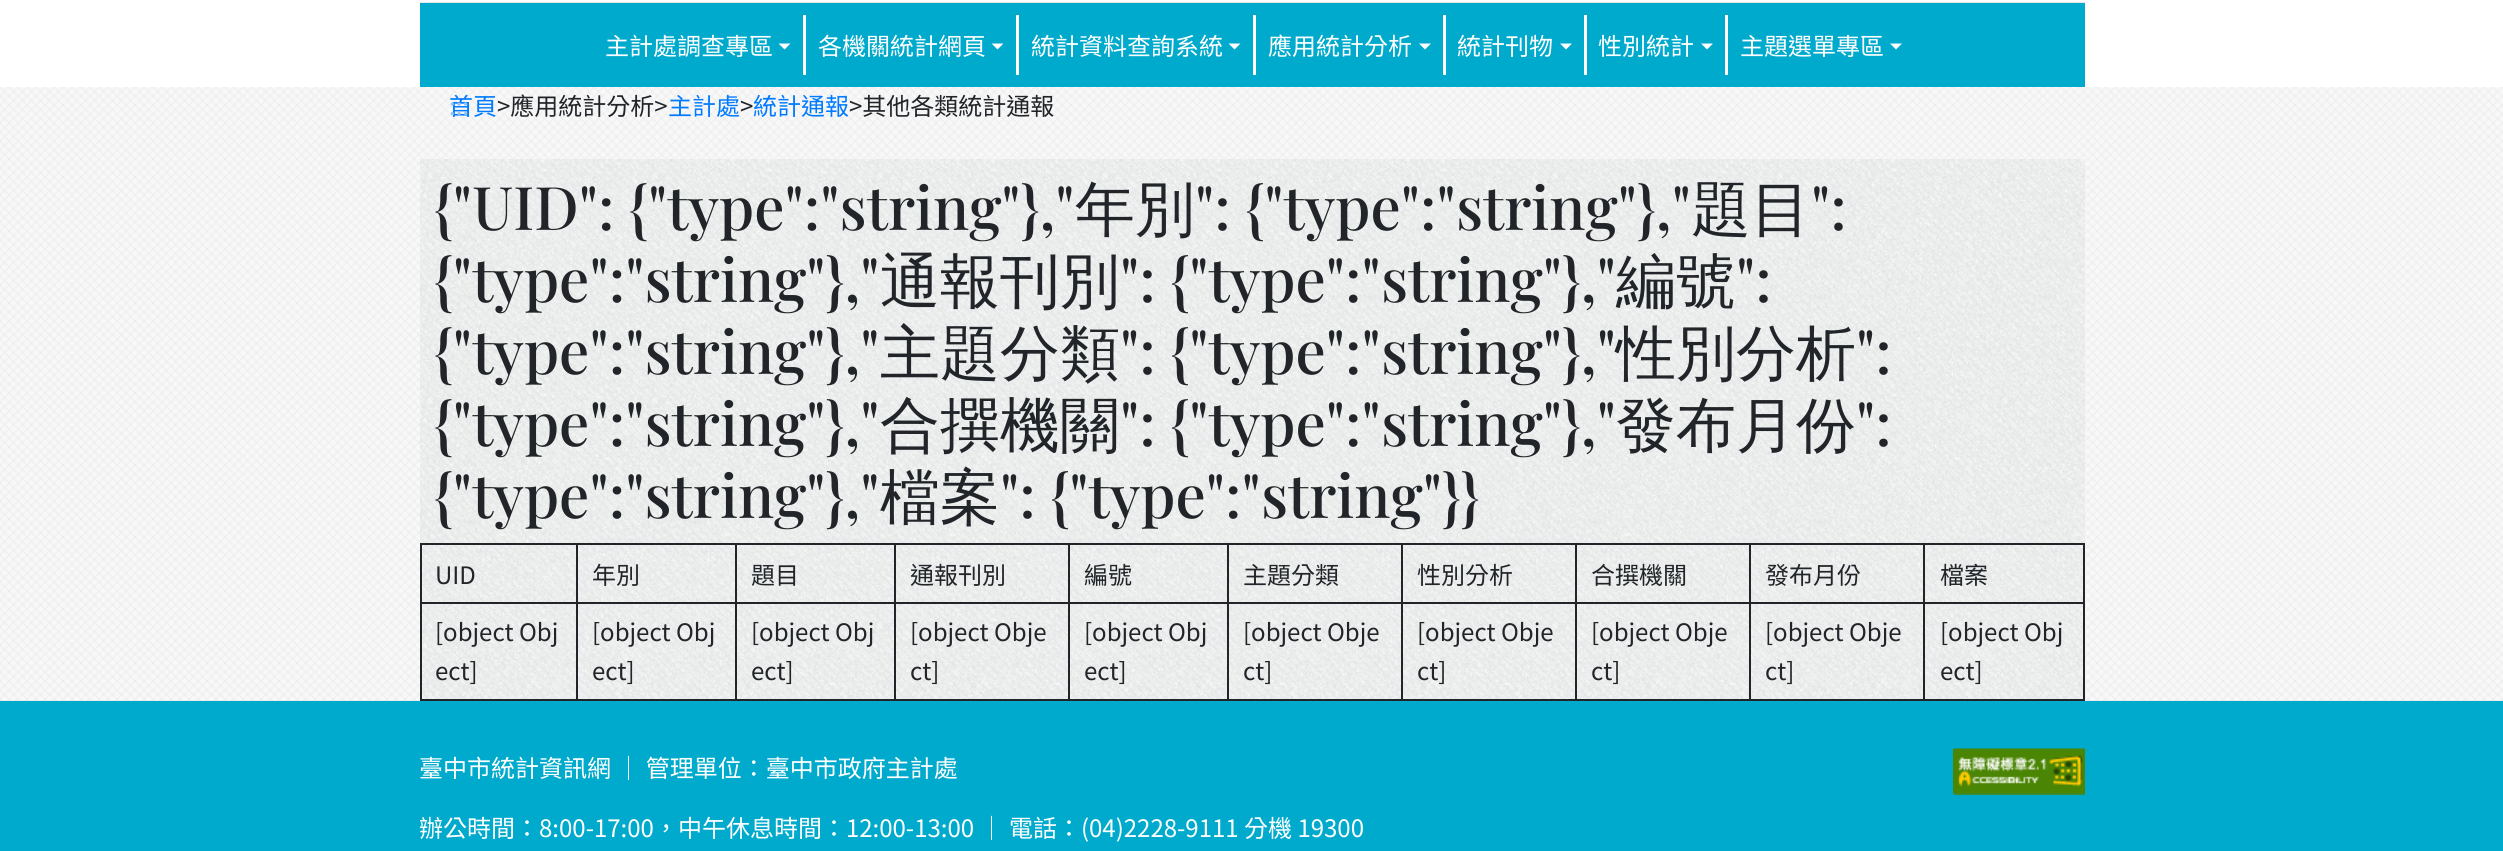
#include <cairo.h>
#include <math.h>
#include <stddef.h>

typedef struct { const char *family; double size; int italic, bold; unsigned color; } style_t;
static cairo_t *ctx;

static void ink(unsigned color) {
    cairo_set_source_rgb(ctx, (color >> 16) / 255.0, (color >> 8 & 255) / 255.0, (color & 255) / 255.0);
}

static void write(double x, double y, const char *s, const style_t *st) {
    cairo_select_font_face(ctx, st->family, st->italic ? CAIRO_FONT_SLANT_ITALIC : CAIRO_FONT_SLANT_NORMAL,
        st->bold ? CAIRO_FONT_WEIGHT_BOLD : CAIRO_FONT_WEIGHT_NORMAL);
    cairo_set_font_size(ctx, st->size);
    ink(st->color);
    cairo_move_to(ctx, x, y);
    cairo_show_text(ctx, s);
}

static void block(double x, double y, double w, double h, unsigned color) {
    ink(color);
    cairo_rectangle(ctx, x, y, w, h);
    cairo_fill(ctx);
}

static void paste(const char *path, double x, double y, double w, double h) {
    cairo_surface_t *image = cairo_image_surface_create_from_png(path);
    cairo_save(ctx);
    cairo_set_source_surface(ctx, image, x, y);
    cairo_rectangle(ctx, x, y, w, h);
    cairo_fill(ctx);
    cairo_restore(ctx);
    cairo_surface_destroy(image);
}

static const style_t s1 = {"Noto Sans TC", 24, 0, 0, 0xffffff};
static const style_t s2 = {"Noto Sans TC", 24, 0, 0, 0x007bff};
static const style_t s3 = {"Noto Sans TC", 24, 0, 0, 0x212529};
static const style_t s4 = {"Noto Sans TC", 24, 0, 0, 0x91c3f8};
static const style_t s5 = {"Playfair Display Medium", 60, 0, 0, 0x212529};
static const style_t s6 = {"WenQuanYi Zen Hei Medium", 60, 0, 0, 0x212529};

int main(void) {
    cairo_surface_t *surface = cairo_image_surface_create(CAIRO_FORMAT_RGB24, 2503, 851);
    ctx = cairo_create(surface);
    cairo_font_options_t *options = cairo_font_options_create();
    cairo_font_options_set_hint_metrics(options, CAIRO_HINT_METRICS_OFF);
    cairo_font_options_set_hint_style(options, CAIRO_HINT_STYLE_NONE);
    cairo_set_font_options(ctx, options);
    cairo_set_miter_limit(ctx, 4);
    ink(0xffffff);
    cairo_paint(ctx);
    block(420, 2, 1665, 1, 0xe5e5e5);
    block(420, 3, 1665, 84, 0x00aacc);
    write(605, 55, "主計處調查專區", &s1);
    cairo_new_path(ctx);
    cairo_move_to(ctx, 778.5, 43.5);
    cairo_line_to(ctx, 790.5, 43.5);
    cairo_line_to(ctx, 784.5, 49.5);
    cairo_close_path(ctx);
    cairo_fill(ctx);
    block(803, 15, 3, 60, 0xffffff);
    write(818, 55, "各機關統計網頁", &s1);
    cairo_new_path(ctx);
    cairo_move_to(ctx, 991.5, 43.5);
    cairo_line_to(ctx, 1003.5, 43.5);
    cairo_line_to(ctx, 997.5, 49.5);
    cairo_close_path(ctx);
    cairo_fill(ctx);
    block(1016, 15, 3, 60, 0xffffff);
    write(1031, 55, "統計資料查詢系統", &s1);
    cairo_new_path(ctx);
    cairo_move_to(ctx, 1228.5, 43.5);
    cairo_line_to(ctx, 1240.5, 43.5);
    cairo_line_to(ctx, 1234.5, 49.5);
    cairo_close_path(ctx);
    cairo_fill(ctx);
    block(1253, 15, 3, 60, 0xffffff);
    write(1268, 55, "應用統計分析", &s1);
    cairo_new_path(ctx);
    cairo_move_to(ctx, 1419, 43.5);
    cairo_line_to(ctx, 1431, 43.5);
    cairo_line_to(ctx, 1425, 49.5);
    cairo_close_path(ctx);
    cairo_fill(ctx);
    block(1443, 15, 3, 60, 0xffffff);
    write(1457, 55, "統計刊物", &s1);
    cairo_new_path(ctx);
    cairo_move_to(ctx, 1560, 43.5);
    cairo_line_to(ctx, 1572, 43.5);
    cairo_line_to(ctx, 1566, 49.5);
    cairo_close_path(ctx);
    cairo_fill(ctx);
    block(1584, 15, 3, 60, 0xffffff);
    write(1598, 55, "性別統計", &s1);
    cairo_new_path(ctx);
    cairo_move_to(ctx, 1701, 43.5);
    cairo_line_to(ctx, 1713, 43.5);
    cairo_line_to(ctx, 1707, 49.5);
    cairo_close_path(ctx);
    cairo_fill(ctx);
    block(1725, 15, 3, 60, 0xffffff);
    write(1740, 55, "主題選單專區", &s1);
    cairo_new_path(ctx);
    cairo_move_to(ctx, 1890, 43.5);
    cairo_line_to(ctx, 1902, 43.5);
    cairo_line_to(ctx, 1896, 49.5);
    cairo_close_path(ctx);
    cairo_fill(ctx);
    block(0, 700, 2503, 1, 0xe0e0e0);
    paste("pic1.png", 0, 87, 2503, 614);
    write(449, 115, "首頁", &s2);
    write(497, 115, ">應用統計分析>", &s3);
    write(668, 115, "主計處", &s2);
    write(740, 115, ">", &s3);
    write(753, 115, "統計通報", &s2);
    write(849, 115, ">其他各類統計通報", &s3);
    write(449, 115, ":::", &s4);
    paste("pic2.png", 420, 159, 1665, 540);
    write(434, 230, "{\"UID\": {\"type\":\"string\"},\"", &s5);
    write(1075, 230, "年別", &s6);
    write(1195, 230, "\": {\"type\":\"string\"},\"", &s5);
    write(1691, 230, "題目", &s6);
    write(1811, 230, "\":", &s5);
    write(434, 302, "{\"type\":\"string\"},\"", &s5);
    write(880, 302, "通報刊別", &s6);
    write(1120, 302, "\": {\"type\":\"string\"},\"", &s5);
    write(1616, 302, "編號", &s6);
    write(1736, 302, "\":", &s5);
    write(434, 374, "{\"type\":\"string\"},\"", &s5);
    write(880, 374, "主題分類", &s6);
    write(1120, 374, "\": {\"type\":\"string\"},\"", &s5);
    write(1616, 374, "性別分析", &s6);
    write(1856, 374, "\":", &s5);
    write(434, 446, "{\"type\":\"string\"},\"", &s5);
    write(880, 446, "合撰機關", &s6);
    write(1120, 446, "\": {\"type\":\"string\"},\"", &s5);
    write(1616, 446, "發布月份", &s6);
    write(1856, 446, "\":", &s5);
    write(434, 518, "{\"type\":\"string\"},\"", &s5);
    write(880, 518, "檔案", &s6);
    write(1000, 518, "\": {\"type\":\"string\"}}", &s5);
    cairo_rectangle(ctx, 421, 544, 1663, 156);
    cairo_stroke(ctx);
    block(422, 602, 1662, 2, 0x212529);
    write(435, 584, "UID", &s3);
    block(576, 545, 2, 154, 0x212529);
    write(592, 584, "年別", &s3);
    block(735, 545, 2, 154, 0x212529);
    write(751, 584, "題目", &s3);
    block(894, 545, 2, 154, 0x212529);
    write(910, 584, "通報刊別", &s3);
    block(1068, 545, 2, 154, 0x212529);
    write(1084, 584, "編號", &s3);
    block(1227, 545, 2, 154, 0x212529);
    write(1243, 584, "主題分類", &s3);
    block(1401, 545, 2, 154, 0x212529);
    write(1417, 584, "性別分析", &s3);
    block(1575, 545, 2, 154, 0x212529);
    write(1591, 584, "合撰機關", &s3);
    block(1749, 545, 2, 154, 0x212529);
    write(1765, 584, "發布月份", &s3);
    block(1923, 545, 2, 154, 0x212529);
    write(1940, 584, "檔案", &s3);
    write(435, 641, "[object Obj", &s3);
    write(435, 680, "ect]", &s3);
    write(592, 641, "[object Obj", &s3);
    write(592, 680, "ect]", &s3);
    write(751, 641, "[object Obj", &s3);
    write(751, 680, "ect]", &s3);
    write(910, 641, "[object Obje", &s3);
    write(910, 680, "ct]", &s3);
    write(1084, 641, "[object Obj", &s3);
    write(1084, 680, "ect]", &s3);
    write(1243, 641, "[object Obje", &s3);
    write(1243, 680, "ct]", &s3);
    write(1417, 641, "[object Obje", &s3);
    write(1417, 680, "ct]", &s3);
    write(1591, 641, "[object Obje", &s3);
    write(1591, 680, "ct]", &s3);
    write(1765, 641, "[object Obje", &s3);
    write(1765, 680, "ct]", &s3);
    write(1940, 641, "[object Obj", &s3);
    write(1940, 680, "ect]", &s3);
    block(0, 701, 2503, 150, 0x00aacc);
    write(419, 777, "臺中市統計資訊網 ｜ 管理單位：臺中市政府主計處", &s1);
    write(419, 837, "辦公時間：8:00-17:00，中午休息時間：12:00-13:00 ｜ 電話：(04)2228-9111 分機 19300", &s1);
    paste("pic3.png", 1953, 748, 132, 47);
    cairo_surface_write_to_png(surface, "screenshot.png");
    cairo_font_options_destroy(options);
    cairo_destroy(ctx);
    cairo_surface_destroy(surface);
    return 0;
}
